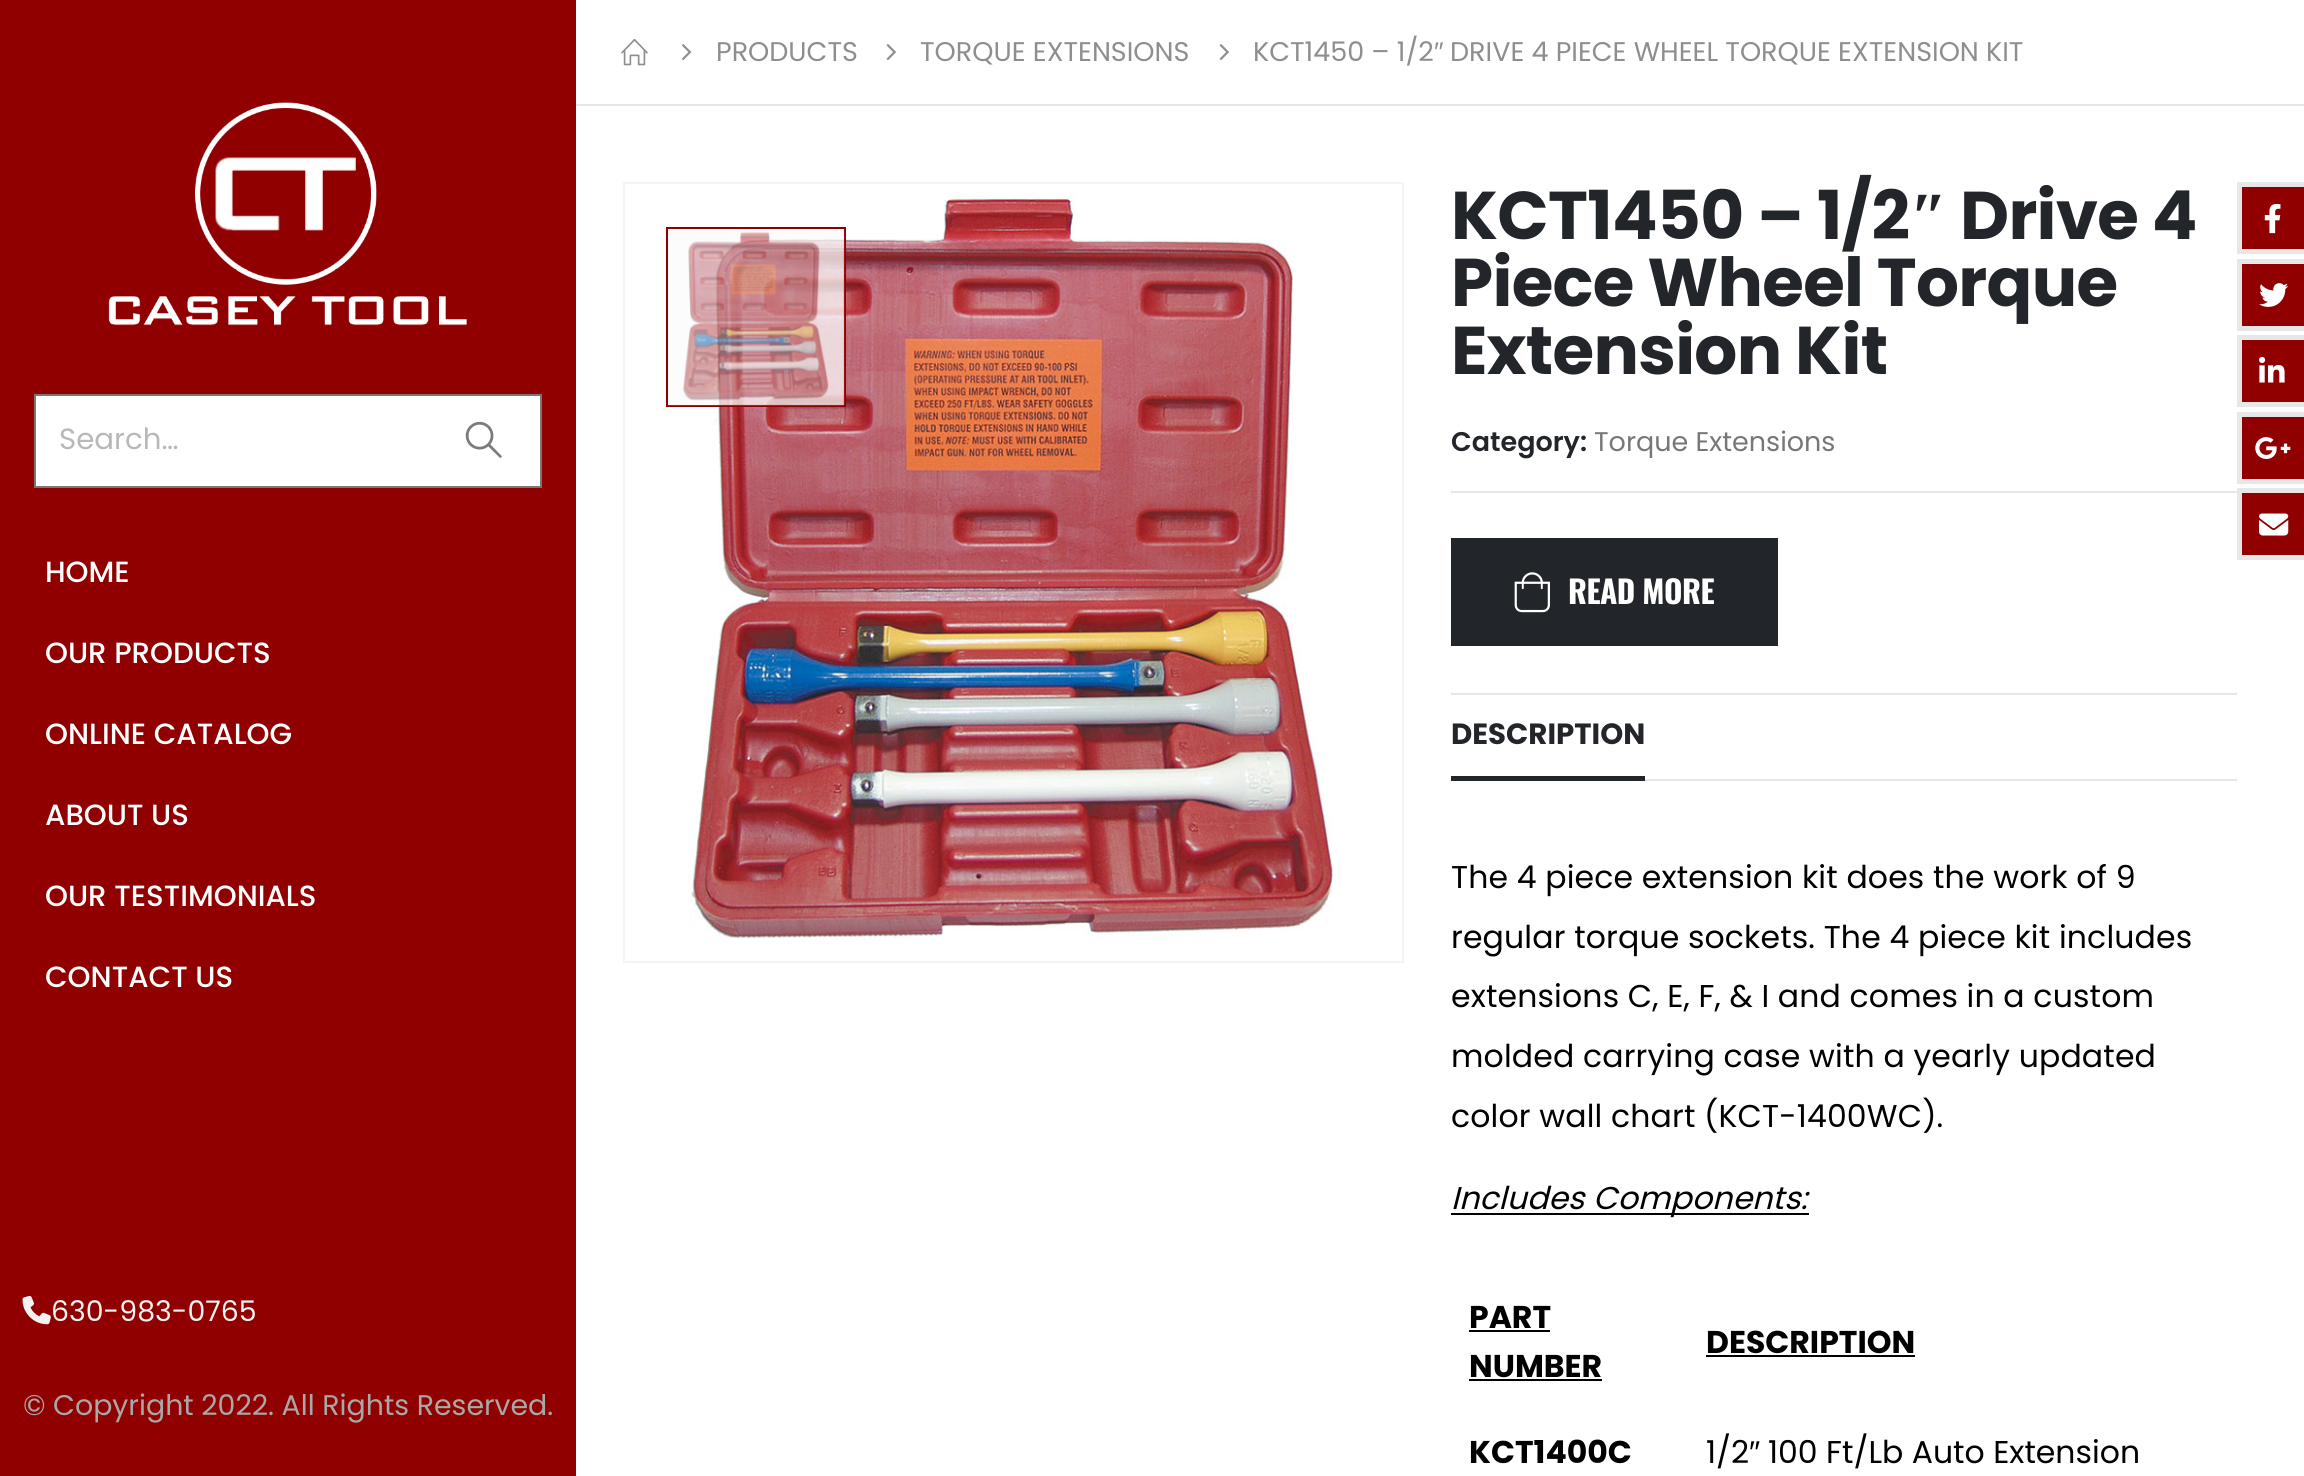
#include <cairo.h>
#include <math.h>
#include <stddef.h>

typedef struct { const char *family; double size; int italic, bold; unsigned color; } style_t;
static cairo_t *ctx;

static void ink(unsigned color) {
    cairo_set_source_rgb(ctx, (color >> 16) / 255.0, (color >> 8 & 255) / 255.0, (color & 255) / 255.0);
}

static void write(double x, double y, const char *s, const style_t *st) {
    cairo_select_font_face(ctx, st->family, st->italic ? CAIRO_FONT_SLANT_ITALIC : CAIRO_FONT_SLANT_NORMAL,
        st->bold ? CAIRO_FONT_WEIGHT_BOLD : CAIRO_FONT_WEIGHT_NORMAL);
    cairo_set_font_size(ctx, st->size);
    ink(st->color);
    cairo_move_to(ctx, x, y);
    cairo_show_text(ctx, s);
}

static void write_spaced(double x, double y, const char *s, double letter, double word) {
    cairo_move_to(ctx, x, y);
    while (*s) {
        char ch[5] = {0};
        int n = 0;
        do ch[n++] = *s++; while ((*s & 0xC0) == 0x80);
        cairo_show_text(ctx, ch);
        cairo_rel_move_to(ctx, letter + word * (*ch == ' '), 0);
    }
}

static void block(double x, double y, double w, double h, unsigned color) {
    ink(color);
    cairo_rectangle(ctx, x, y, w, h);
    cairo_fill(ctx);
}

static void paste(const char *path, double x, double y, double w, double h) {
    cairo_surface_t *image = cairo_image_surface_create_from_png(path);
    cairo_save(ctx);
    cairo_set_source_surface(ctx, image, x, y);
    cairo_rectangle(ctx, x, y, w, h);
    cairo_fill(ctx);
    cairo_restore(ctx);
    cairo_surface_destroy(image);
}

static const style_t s1 = {"Poppins", 29.25, 0, 0, 0xb8b8b8};
static const style_t s2 = {"Poppins Medium", 29.25, 0, 0, 0xffffff};
static const style_t s3 = {"Poppins", 28.4, 0, 0, 0xf2f2f2};
static const style_t s4 = {"Poppins", 28.4, 0, 0, 0xa8a8a8};
static const style_t s5 = {"Poppins", 27, 0, 0, 0x8e8e8e};
static const style_t s6 = {"Liberation Sans", 27, 0, 0, 0x8e8e8e};
static const style_t s7 = {"Poppins SemiBold", 27, 0, 0, 0x222529};
static const style_t s8 = {"Poppins", 27, 0, 0, 0x777777};
static const style_t s9 = {"Poppins", 29.25, 0, 1, 0x222529};
static const style_t s10 = {"Poppins", 31.5, 0, 1, 0x000000};
static const style_t s11 = {"Poppins", 31.5, 0, 0, 0x000000};
static const style_t s12 = {"Liberation Sans", 31.5, 0, 0, 0x000000};

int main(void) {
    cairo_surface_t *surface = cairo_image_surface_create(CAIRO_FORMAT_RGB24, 2304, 1476);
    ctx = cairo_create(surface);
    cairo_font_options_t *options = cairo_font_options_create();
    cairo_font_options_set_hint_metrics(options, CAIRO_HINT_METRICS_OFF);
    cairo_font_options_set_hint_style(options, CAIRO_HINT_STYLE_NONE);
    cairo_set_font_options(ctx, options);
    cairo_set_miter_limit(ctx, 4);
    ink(0xffffff);
    cairo_paint(ctx);
    block(0, 0, 576, 1476, 0x910000);
    paste("pic1.png", 108, 102, 359, 224);
    ink(0xffffff);
    cairo_rectangle(ctx, 35, 395, 506, 92);
    cairo_fill_preserve(ctx);
    ink(0x777777);
    cairo_stroke(ctx);
    write(59, 449, "Search…", &s1);
    paste("pic2.png", 465, 421, 37, 37);
    write(45, 582, "HOME", &s2);
    write(45, 663, "OUR PRODUCTS", &s2);
    write(45, 744, "ONLINE CATALOG", &s2);
    write(45, 825, "ABOUT US", &s2);
    write(45, 906, "OUR TESTIMONIALS", &s2);
    write(45, 987, "CONTACT US", &s2);
    paste("pic3.png", 22, 1296, 29, 29);
    write(51, 1321, "630-983-0765", &s3);
    write(23, 1415, "© Copyright 2022. All Rights Reserved.", &s4);
    block(576, 104, 1728, 2, 0xe6e6e6);
    paste("pic4.png", 621, 38, 27, 28);
    paste("pic5.png", 682, 44, 10, 17);
    write(716, 61, "PRODUCTS", &s5);
    paste("pic6.png", 886, 44, 10, 16);
    write(920, 61, "TORQUE EXTENSIONS", &s5);
    paste("pic6.png", 1219, 44, 10, 16);
    write(1253, 61, "KCT1450 – 1/2", &s5);
    write(1434, 61, "″", &s6);
    write(1450, 61, "DRIVE 4 PIECE WHEEL TORQUE EXTENSION KIT", &s5);
    cairo_rectangle(ctx, 624, 183, 779, 779);
    ink(0xf4f4f4);
    cairo_stroke(ctx);
    paste("pic7.png", 688, 192, 649, 746);
    cairo_set_source_rgba(ctx, 0.957, 0.957, 0.957, 0.5);
    cairo_rectangle(ctx, 667, 228, 178, 178);
    cairo_fill_preserve(ctx);
    ink(0x910000);
    cairo_stroke(ctx);
    paste("pic8.png", 668, 229, 177, 177);
    cairo_select_font_face(ctx, "Poppins", CAIRO_FONT_SLANT_NORMAL, CAIRO_FONT_WEIGHT_BOLD);
    cairo_set_font_size(ctx, 67.5);
    ink(0x222529);
    write_spaced(1451, 239, "KCT1450 – 1/2", -0.7, 0);
    cairo_select_font_face(ctx, "Liberation Serif", CAIRO_FONT_SLANT_NORMAL, CAIRO_FONT_WEIGHT_BOLD);
    write_spaced(1910, 239, "″", -0.7, 0);
    cairo_select_font_face(ctx, "Poppins", CAIRO_FONT_SLANT_NORMAL, CAIRO_FONT_WEIGHT_BOLD);
    write_spaced(1960, 239, "Drive 4", -0.7, 0);
    write_spaced(1451, 306, "Piece Wheel Torque", -0.7, 0);
    write_spaced(1451, 374, "Extension Kit", -0.7, 0);
    ink(0x910000);
    cairo_rectangle(ctx, 2239.5, 184.5, 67, 67);
    cairo_fill_preserve(ctx);
    ink(0xe7e7e7);
    cairo_set_line_width(ctx, 5);
    cairo_stroke(ctx);
    paste("pic9.png", 2264, 203, 17, 31);
    ink(0x910000);
    cairo_rectangle(ctx, 2239.5, 261.5, 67, 67);
    cairo_fill_preserve(ctx);
    ink(0xe7e7e7);
    cairo_stroke(ctx);
    paste("pic10.png", 2259, 283, 30, 24);
    ink(0x910000);
    cairo_rectangle(ctx, 2239.5, 337.5, 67, 67);
    cairo_fill_preserve(ctx);
    ink(0xe7e7e7);
    cairo_stroke(ctx);
    paste("pic11.png", 2259, 356, 26, 27);
    ink(0x910000);
    cairo_rectangle(ctx, 2239.5, 414.5, 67, 67);
    cairo_fill_preserve(ctx);
    ink(0xe7e7e7);
    cairo_stroke(ctx);
    paste("pic12.png", 2255, 437, 36, 22);
    ink(0x910000);
    cairo_rectangle(ctx, 2239.5, 490.5, 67, 67);
    cairo_fill_preserve(ctx);
    ink(0xe7e7e7);
    cairo_stroke(ctx);
    paste("pic13.png", 2259, 513, 30, 23);
    write(1451, 451, "Category:", &s7);
    write(1594, 451, "Torque Extensions", &s8);
    block(1451, 491, 786, 2, 0xe7e7e7);
    block(1451, 693, 786, 2, 0xe7e7e7);
    block(1451, 538, 327, 108, 0x222529);
    paste("pic14.png", 1514, 572, 36, 41);
    cairo_select_font_face(ctx, "Oswald", CAIRO_FONT_SLANT_NORMAL, CAIRO_FONT_WEIGHT_BOLD);
    cairo_set_font_size(ctx, 31.5);
    ink(0xffffff);
    write_spaced(1568, 604, "READ MORE", -0.5, 0);
    block(1451, 776, 194, 5, 0x222529);
    write(1451, 744, "DESCRIPTION", &s9);
    block(1645, 779, 592, 2, 0xe7e7e7);
    cairo_select_font_face(ctx, "Poppins", CAIRO_FONT_SLANT_NORMAL, CAIRO_FONT_WEIGHT_NORMAL);
    cairo_set_font_size(ctx, 31.5);
    ink(0x000000);
    write_spaced(1451, 888, "The 4 piece extension kit does the work of 9", 0.15, 0);
    write_spaced(1451, 948, "regular torque sockets. The 4 piece kit includes", 0.15, 0);
    write_spaced(1451, 1007, "extensions C, E, F, & I and comes in a custom", 0.15, 0);
    write_spaced(1451, 1067, "molded carrying case with a yearly updated", 0.15, 0);
    write_spaced(1451, 1127, "color wall chart (KCT-1400WC).", 0.15, 0);
    block(1451, 1213, 358, 2, 0x000000);
    cairo_select_font_face(ctx, "Poppins", CAIRO_FONT_SLANT_ITALIC, CAIRO_FONT_WEIGHT_NORMAL);
    write_spaced(1451, 1209, "Includes Components:", 0.15, 0);
    write(1469, 1328, "PART", &s10);
    block(1469, 1330, 81, 2, 0x000000);
    write(1469, 1377, "NUMBER", &s10);
    block(1469, 1379, 133, 2, 0x000000);
    write(1706, 1353, "DESCRIPTION", &s10);
    block(1706, 1355, 209, 2, 0x000000);
    write(1469, 1463, "KCT1400C", &s10);
    write(1706, 1463, "1/2", &s11);
    write(1749, 1463, "″", &s12);
    write(1768, 1463, "100 Ft/Lb Auto Extension", &s11);
    cairo_surface_write_to_png(surface, "screenshot.png");
    cairo_font_options_destroy(options);
    cairo_destroy(ctx);
    cairo_surface_destroy(surface);
    return 0;
}
